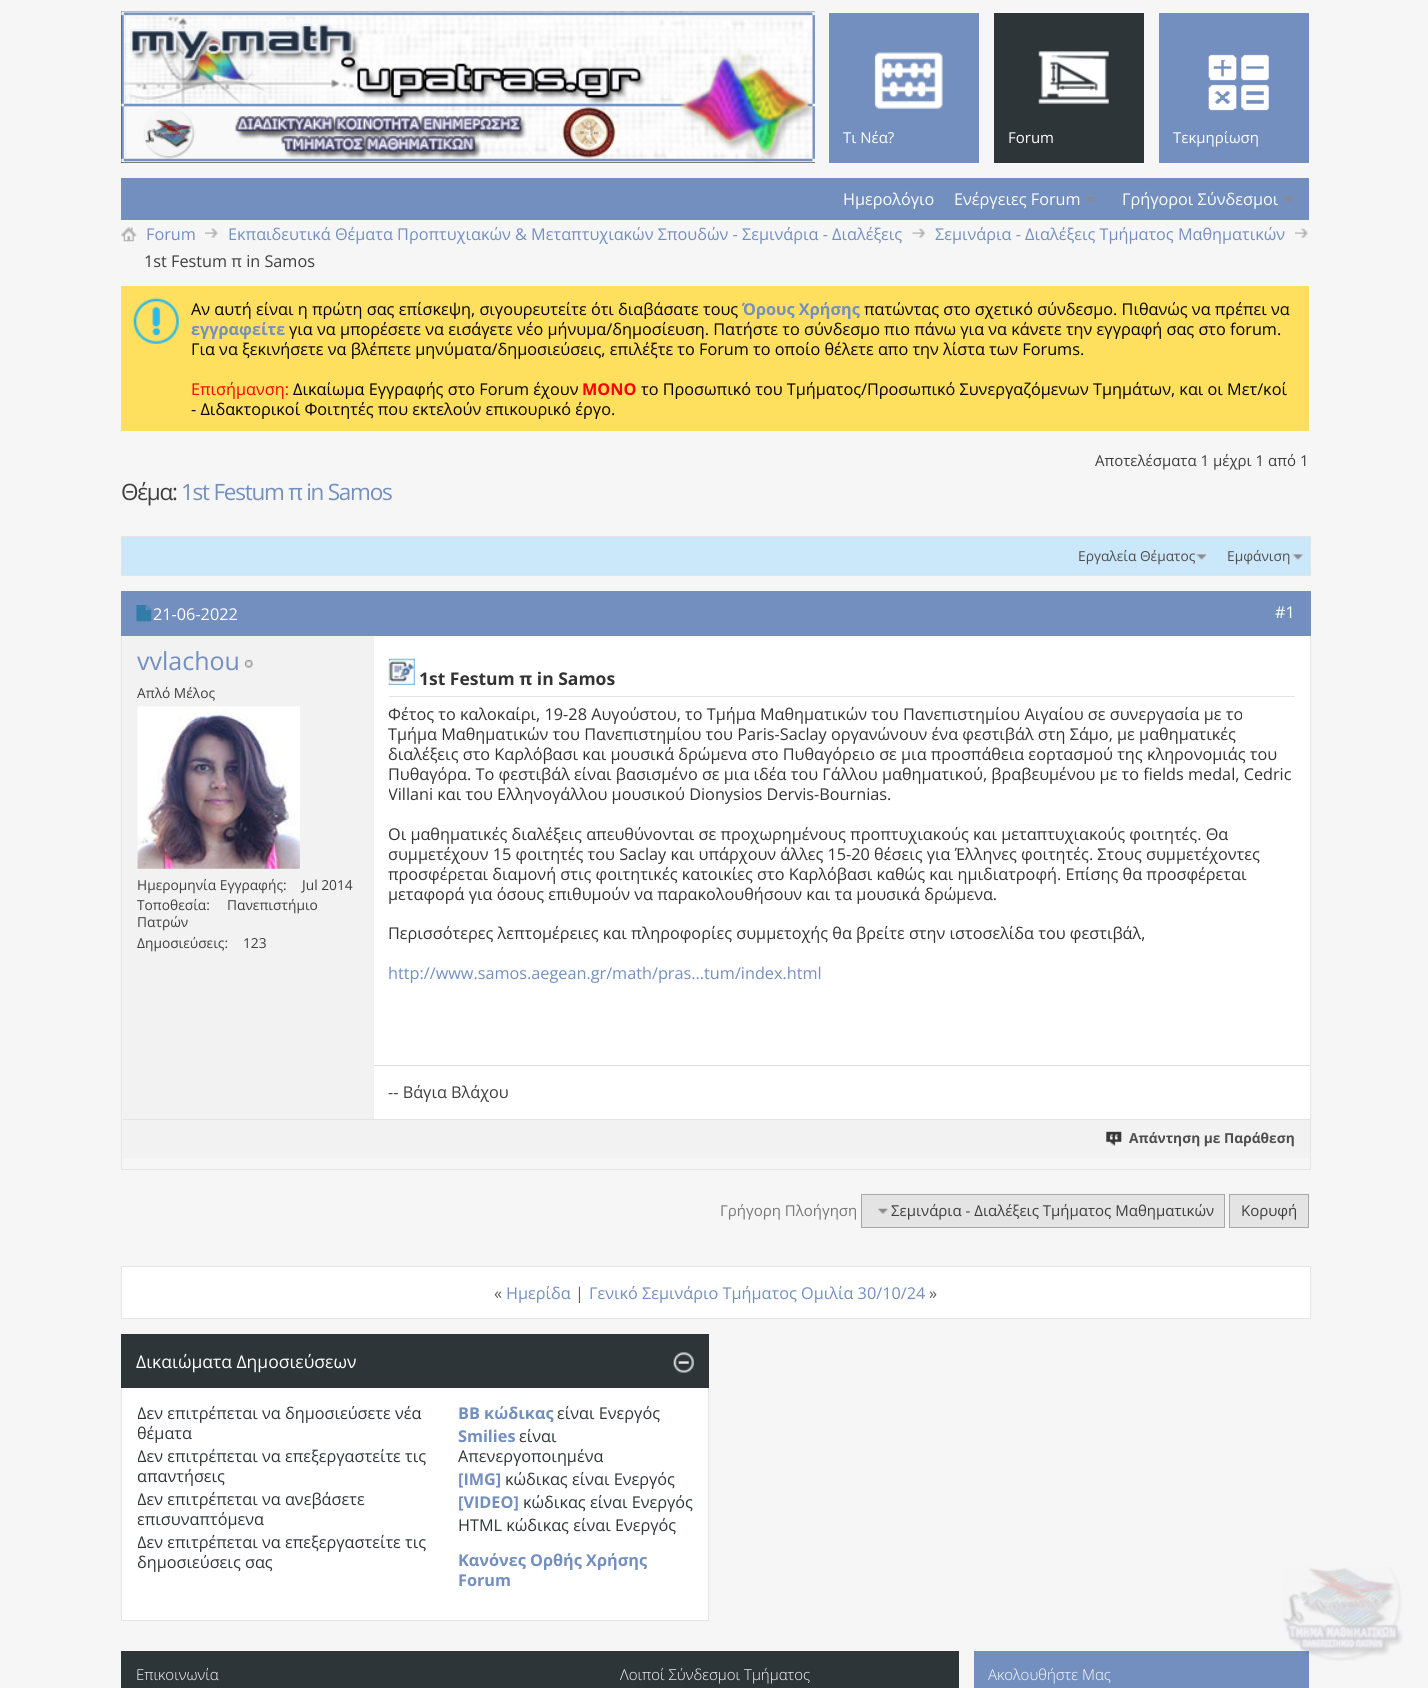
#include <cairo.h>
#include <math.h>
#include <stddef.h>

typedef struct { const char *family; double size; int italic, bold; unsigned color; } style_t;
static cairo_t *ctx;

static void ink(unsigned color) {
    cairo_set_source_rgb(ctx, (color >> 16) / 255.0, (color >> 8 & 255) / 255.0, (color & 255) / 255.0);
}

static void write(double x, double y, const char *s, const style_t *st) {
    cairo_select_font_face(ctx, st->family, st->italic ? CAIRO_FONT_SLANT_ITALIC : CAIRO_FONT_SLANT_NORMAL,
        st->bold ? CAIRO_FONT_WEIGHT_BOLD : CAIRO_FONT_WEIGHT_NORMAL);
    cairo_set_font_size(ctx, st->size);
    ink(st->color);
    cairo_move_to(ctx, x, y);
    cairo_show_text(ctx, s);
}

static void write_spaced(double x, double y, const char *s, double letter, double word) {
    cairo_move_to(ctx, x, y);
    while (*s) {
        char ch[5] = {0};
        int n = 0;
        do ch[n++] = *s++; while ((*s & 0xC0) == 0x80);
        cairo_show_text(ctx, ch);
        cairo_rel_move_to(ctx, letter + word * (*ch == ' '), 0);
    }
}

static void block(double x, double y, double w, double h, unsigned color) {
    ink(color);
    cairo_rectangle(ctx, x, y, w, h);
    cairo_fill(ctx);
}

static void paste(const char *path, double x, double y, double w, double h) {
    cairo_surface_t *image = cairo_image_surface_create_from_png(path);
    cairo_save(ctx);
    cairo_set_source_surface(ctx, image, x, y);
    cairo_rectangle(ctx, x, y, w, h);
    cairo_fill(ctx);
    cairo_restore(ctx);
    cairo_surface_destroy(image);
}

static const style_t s1 = {"Open Sans", 15, 0, 0, 0xffffff};
static const style_t s2 = {"Open Sans", 16.25, 0, 0, 0xffffff};
static const style_t s3 = {"Open Sans", 16.25, 0, 0, 0x738fbf};
static const style_t s4 = {"Open Sans", 16.25, 0, 0, 0x3e3e3e};
static const style_t s5 = {"Open Sans", 16.25, 0, 0, 0x000000};
static const style_t s6 = {"Open Sans", 16.25, 0, 1, 0x738fbf};
static const style_t s7 = {"Open Sans", 16.25, 0, 0, 0xff0000};
static const style_t s8 = {"Open Sans", 16.25, 0, 1, 0xff0000};
static const style_t s9 = {"Open Sans", 15, 0, 0, 0x3e3e3e};
static const style_t s10 = {"Open Sans", 13.75, 0, 0, 0x4e4e4e};
static const style_t s11 = {"Open Sans", 25, 0, 0, 0x738fbf};
static const style_t s12 = {"Open Sans", 13.75, 0, 0, 0x3e3e3e};
static const style_t s13 = {"Open Sans", 17.5, 0, 1, 0x333333};
static const style_t s14 = {"Open Sans", 16.25, 0, 0, 0x333333};
static const style_t s15 = {"Open Sans", 13.75, 0, 1, 0x4e4e4e};
static const style_t s16 = {"Open Sans", 15, 0, 0, 0x777777};
static const style_t s17 = {"Open Sans", 16.25, 0, 0, 0x5d5d5d};
static const style_t s18 = {"Open Sans", 17.5, 0, 0, 0xffffff};
static const style_t s19 = {"Open Sans", 16.25, 0, 0, 0x2e3539};
static const style_t s20 = {"Open Sans Light", 15, 0, 0, 0xffffff};

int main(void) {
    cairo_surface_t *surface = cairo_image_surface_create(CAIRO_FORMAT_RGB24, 1428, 1688);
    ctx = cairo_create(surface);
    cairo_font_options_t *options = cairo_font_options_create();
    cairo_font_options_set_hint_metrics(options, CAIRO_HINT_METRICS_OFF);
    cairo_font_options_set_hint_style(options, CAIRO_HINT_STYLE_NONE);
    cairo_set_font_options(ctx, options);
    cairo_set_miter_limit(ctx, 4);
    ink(0xf6f6f6);
    cairo_paint(ctx);
    block(829, 13, 480, 150, 0x738fbf);
    block(121, 11, 694, 152, 0x000000);
    paste("pic1.png", 121, 11, 694, 152);
    paste("pic2.png", 874, 52, 69, 57);
    write(843, 143, "Τι Νέα?", &s1);
    block(979, 13, 15, 150, 0xf6f6f6);
    block(994, 13, 150, 150, 0x2e3539);
    paste("pic3.png", 1038, 51, 71, 53);
    write(1008, 143, "Forum", &s1);
    block(1144, 13, 15, 150, 0xf6f6f6);
    paste("pic4.png", 1208, 54, 61, 57);
    write(1173, 143, "Τεκμηρίωση", &s1);
    block(121, 178, 1188, 42, 0x738fbf);
    write(843, 205, "Ημερολόγιο", &s2);
    write(954, 205, "Ενέργειες Forum", &s2);
    paste("pic5.png", 1085, 196, 11, 6);
    write(1122, 205, "Γρήγοροι Σύνδεσμοι", &s2);
    paste("pic6.png", 1284, 196, 10, 6);
    paste("pic7.png", 121, 227, 16, 15);
    paste("pic8.png", 205, 228, 13, 10);
    write(146, 240, "Forum", &s3);
    paste("pic9.png", 912, 228, 13, 10);
    write(228, 240, "Εκπαιδευτικά Θέματα Προπτυχιακών & Μεταπτυχιακών Σπουδών - Σεμινάρια - Διαλέξεις", &s3);
    paste("pic10.png", 1295, 228, 13, 10);
    write(935, 240, "Σεμινάρια - Διαλέξεις Τμήματος Μαθηματικών", &s3);
    write(144, 267, "1st Festum π in Samos", &s4);
    block(121, 286, 1188, 145, 0xffdf5e);
    paste("pic11.png", 133, 298, 46, 46);
    write(191, 315, "Αν αυτή είναι η πρώτη σας επίσκεψη, σιγουρευτείτε ότι διαβάσατε τους", &s5);
    write(742, 315, "Όρους Χρήσης", &s6);
    write(864, 315, "πατώντας στο σχετικό σύνδεσμο. Πιθανώς να πρέπει να", &s5);
    write(191, 335, "εγγραφείτε", &s6);
    write(289, 335, "για να μπορέσετε να εισάγετε νέο μήνυμα/δημοσίευση. Πατήστε το σύνδεσμο πιο πάνω για να κάνετε την εγγραφή σας στο forum.", &s5);
    write(191, 355, "Για να ξεκινήσετε να βλέπετε μηνύματα/δημοσιεύσεις, επιλέξτε το Forum το οποίο θέλετε απο την λίστα των Forums.", &s5);
    write(191, 395, "Επισήμανση:", &s7);
    write(293, 395, "Δικαίωμα Εγγραφής στο Forum έχουν", &s5);
    write(582, 395, "MONO", &s8);
    write(641, 395, "το Προσωπικό του Τμήματος/Προσωπικό Συνεργαζόμενων Τμημάτων, και οι Μετ/κοί", &s5);
    write(191, 415, "- Διδακτορικοί Φοιτητές που εκτελούν επικουρικό έργο.", &s5);
    write(1095, 466, "Αποτελέσματα 1 μέχρι 1 από 1", &s9);
    cairo_set_font_size(ctx, 22.5);
    write_spaced(121, 500, "Θέμα:", -1.25, 0);
    ink(0x738fbf);
    write_spaced(181, 500, "1st Festum π in Samos", -1.25, 0);
    ink(0xcbe7fa);
    cairo_rectangle(ctx, 121.5, 536.5, 1189, 39);
    cairo_fill_preserve(ctx);
    ink(0xe4e4e4);
    cairo_set_line_width(ctx, 1);
    cairo_stroke(ctx);
    paste("pic12.png", 1196, 554, 11, 6);
    write(1078, 561, "Εργαλεία Θέματος", &s10);
    paste("pic13.png", 1292, 554, 11, 6);
    write(1227, 561, "Εμφάνιση", &s10);
    cairo_rectangle(ctx, 121.5, 591.5, 1189, 578);
    ink(0xe4e4e4);
    cairo_stroke(ctx);
    block(121, 591, 1190, 45, 0x738fbf);
    paste("pic14.png", 136, 605, 16, 17);
    write(153, 620, "21-06-2022", &s2);
    write(1275, 618, "#1", &s2);
    block(123, 636, 250, 483, 0xf2f2f2);
    write(137, 670, "vvlachou", &s11);
    paste("pic15.png", 244, 659, 9, 9);
    write(137, 698, "Απλό Μέλος", &s12);
    paste("pic16.png", 137, 706, 163, 163);
    write(137, 890, "Ημερομηνία Εγγραφής:", &s12);
    write(302, 890, "Jul 2014", &s12);
    write(137, 910, "Τοποθεσία:", &s12);
    write(227, 910, "Πανεπιστήμιο", &s12);
    write(137, 927, "Πατρών", &s12);
    write(137, 948, "Δημοσιεύσεις:", &s12);
    write(243, 948, "123", &s12);
    block(374, 636, 936, 483, 0xffffff);
    block(373, 636, 1, 483, 0xefefef);
    block(389, 696, 906, 1, 0xe4e4e4);
    paste("pic17.png", 388, 658, 27, 27);
    write(419, 685, "1st Festum π in Samos", &s13);
    write(388, 720, "Φέτος το καλοκαίρι, 19-28 Αυγούστου, το Τμήμα Μαθηματικών του Πανεπιστημίου Αιγαίου σε συνεργασία με το", &s14);
    write(388, 740, "Τμήμα Μαθηματικών του Πανεπιστημίου του Paris-Saclay οργανώνουν ένα φεστιβάλ στη Σάμο, με μαθηματικές", &s14);
    write(388, 760, "διαλέξεις στο Καρλόβασι και μουσικά δρώμενα στο Πυθαγόρειο σε μια προσπάθεια εορτασμού της κληρονομιάς του", &s14);
    write(388, 780, "Πυθαγόρα. Το φεστιβάλ είναι βασισμένο σε μια ιδέα του Γάλλου μαθηματικού, βραβευμένου με το fields medal, Cedric", &s14);
    cairo_save(ctx);
    cairo_rectangle(ctx, 389, 704, 906, 280);
    cairo_clip(ctx);
    write(388, 800, "Villani και του Ελληνογάλλου μουσικού Dionysios Dervis-Bournias.", &s14);
    cairo_restore(ctx);
    write(388, 840, "Οι μαθηματικές διαλέξεις απευθύνονται σε προχωρημένους προπτυχιακούς και μεταπτυχιακούς φοιτητές. Θα", &s14);
    write(388, 860, "συμμετέχουν 15 φοιτητές του Saclay και υπάρχουν άλλες 15-20 θέσεις για Έλληνες φοιτητές. Στους συμμετέχοντες", &s14);
    write(388, 880, "προσφέρεται διαμονή στις φοιτητικές κατοικίες στο Καρλόβασι καθώς και ημιδιατροφή. Επίσης θα προσφέρεται", &s14);
    write(388, 900, "μεταφορά για όσους επιθυμούν να παρακολουθήσουν και τα μουσικά δρώμενα.", &s14);
    write(388, 939, "Περισσότερες λεπτομέρειες και πληροφορίες συμμετοχής θα βρείτε στην ιστοσελίδα του φεστιβάλ,", &s14);
    write(388, 979, "http://www.samos.aegean.gr/math/pras...tum/index.html", &s3);
    block(374, 1065, 936, 1, 0xdddddd);
    write(388, 1098, "-- Βάγια Βλάχου", &s4);
    block(123, 1120, 1187, 38, 0xf2f2f2);
    block(123, 1119, 1187, 1, 0xe4e4e4);
    paste("pic18.png", 1106, 1131, 16, 15);
    write(1129, 1143, "Απάντηση με Παράθεση", &s15);
    write(720, 1216, "Γρήγορη Πλοήγηση", &s16);
    ink(0xe4e4e4);
    cairo_rectangle(ctx, 861.5, 1194.5, 363, 33);
    cairo_fill_preserve(ctx);
    ink(0xa8a8a8);
    cairo_stroke(ctx);
    paste("pic19.png", 877, 1208, 11, 6);
    write(891, 1216, "Σεμινάρια - Διαλέξεις Τμήματος Μαθηματικών", &s9);
    ink(0xe4e4e4);
    cairo_rectangle(ctx, 1229.5, 1194.5, 79, 33);
    cairo_fill_preserve(ctx);
    ink(0xa8a8a8);
    cairo_stroke(ctx);
    write(1241, 1216, "Κορυφή", &s9);
    ink(0xffffff);
    cairo_rectangle(ctx, 121.5, 1266.5, 1189, 52);
    cairo_fill_preserve(ctx);
    ink(0xe4e4e4);
    cairo_stroke(ctx);
    write(494, 1299, "«", &s17);
    write(506, 1299, "Ημερίδα", &s3);
    write(575, 1299, "|", &s17);
    write(589, 1299, "Γενικό Σεμινάριο Τμήματος Ομιλία 30/10/24", &s3);
    write(929, 1299, "»", &s17);
    block(121, 1334, 588, 54, 0x2e3539);
    write(136, 1368, "Δικαιώματα Δημοσιεύσεων", &s18);
    paste("pic20.png", 673, 1352, 21, 21);
    block(122, 1388, 586, 232, 0xffffff);
    block(708, 1388, 1, 233, 0xe4e4e4);
    block(121, 1620, 588, 1, 0xe4e4e4);
    block(121, 1388, 1, 233, 0xe4e4e4);
    cairo_save(ctx);
    cairo_rectangle(ctx, 138, 1403, 305, 195);
    cairo_clip(ctx);
    write(137, 1419, "Δεν επιτρέπεται", &s19);
    cairo_restore(ctx);
    write(262, 1419, "να δημοσιεύσετε νέα", &s19);
    cairo_save(ctx);
    cairo_rectangle(ctx, 138, 1403, 305, 195);
    cairo_clip(ctx);
    write(137, 1439, "θέματα", &s19);
    write(137, 1462, "Δεν επιτρέπεται", &s19);
    cairo_restore(ctx);
    write(262, 1462, "να επεξεργαστείτε τις", &s19);
    cairo_save(ctx);
    cairo_rectangle(ctx, 138, 1403, 305, 195);
    cairo_clip(ctx);
    write(137, 1482, "απαντήσεις", &s19);
    write(137, 1505, "Δεν επιτρέπεται", &s19);
    cairo_restore(ctx);
    write(262, 1505, "να ανεβάσετε", &s19);
    cairo_save(ctx);
    cairo_rectangle(ctx, 138, 1403, 305, 195);
    cairo_clip(ctx);
    write(137, 1525, "επισυναπτόμενα", &s19);
    write(137, 1548, "Δεν επιτρέπεται", &s19);
    cairo_restore(ctx);
    write(262, 1548, "να επεξεργαστείτε τις", &s19);
    cairo_save(ctx);
    cairo_rectangle(ctx, 138, 1403, 305, 195);
    cairo_clip(ctx);
    write(137, 1568, "δημοσιεύσεις σας", &s19);
    cairo_restore(ctx);
    write(458, 1419, "BB κώδικας", &s6);
    write(557, 1419, "είναι Ενεργός", &s19);
    write(458, 1442, "Smilies", &s6);
    write(519, 1442, "είναι", &s19);
    write(458, 1462, "Απενεργοποιημένα", &s19);
    write(458, 1485, "[IMG]", &s6);
    write(505, 1485, "κώδικας είναι Ενεργός", &s19);
    write(458, 1508, "[VIDEO]", &s6);
    write(523, 1508, "κώδικας είναι Ενεργός", &s19);
    write(458, 1531, "HTML κώδικας είναι Ενεργός", &s19);
    write(458, 1566, "Κανόνες Ορθής Χρήσης", &s6);
    write(458, 1586, "Forum", &s6);
    block(121, 1651, 838, 37, 0x2e3539);
    write(136, 1680, "Επικοινωνία", &s20);
    write(620, 1680, "Λοιποί Σύνδεσμοι Τμήματος", &s20);
    block(974, 1651, 335, 37, 0x738fbf);
    write(988, 1680, "Ακολουθήστε Μας", &s20);
    paste("pic21.png", 1282, 1567, 121, 94);
    cairo_surface_write_to_png(surface, "screenshot.png");
    cairo_font_options_destroy(options);
    cairo_destroy(ctx);
    cairo_surface_destroy(surface);
    return 0;
}
